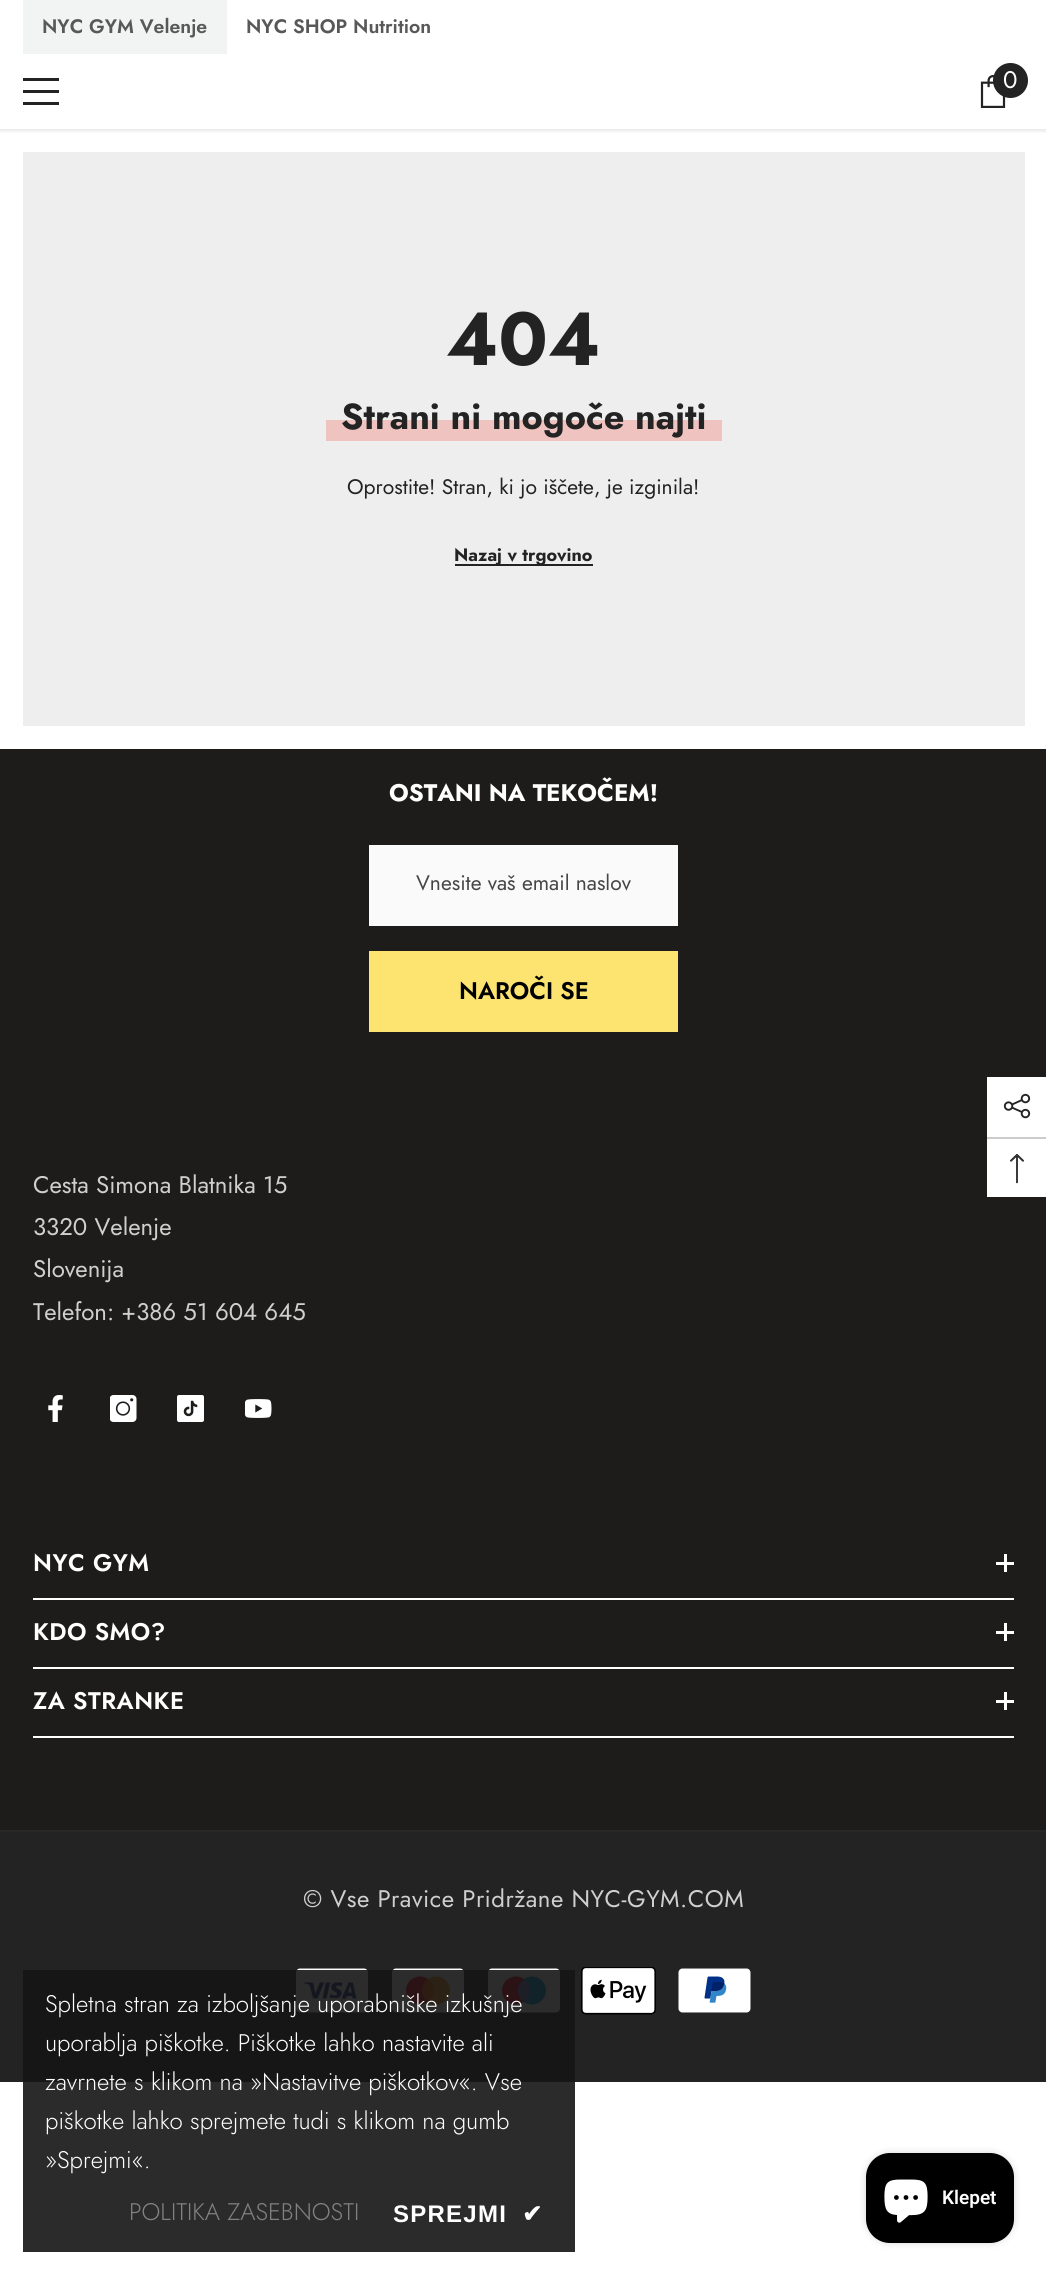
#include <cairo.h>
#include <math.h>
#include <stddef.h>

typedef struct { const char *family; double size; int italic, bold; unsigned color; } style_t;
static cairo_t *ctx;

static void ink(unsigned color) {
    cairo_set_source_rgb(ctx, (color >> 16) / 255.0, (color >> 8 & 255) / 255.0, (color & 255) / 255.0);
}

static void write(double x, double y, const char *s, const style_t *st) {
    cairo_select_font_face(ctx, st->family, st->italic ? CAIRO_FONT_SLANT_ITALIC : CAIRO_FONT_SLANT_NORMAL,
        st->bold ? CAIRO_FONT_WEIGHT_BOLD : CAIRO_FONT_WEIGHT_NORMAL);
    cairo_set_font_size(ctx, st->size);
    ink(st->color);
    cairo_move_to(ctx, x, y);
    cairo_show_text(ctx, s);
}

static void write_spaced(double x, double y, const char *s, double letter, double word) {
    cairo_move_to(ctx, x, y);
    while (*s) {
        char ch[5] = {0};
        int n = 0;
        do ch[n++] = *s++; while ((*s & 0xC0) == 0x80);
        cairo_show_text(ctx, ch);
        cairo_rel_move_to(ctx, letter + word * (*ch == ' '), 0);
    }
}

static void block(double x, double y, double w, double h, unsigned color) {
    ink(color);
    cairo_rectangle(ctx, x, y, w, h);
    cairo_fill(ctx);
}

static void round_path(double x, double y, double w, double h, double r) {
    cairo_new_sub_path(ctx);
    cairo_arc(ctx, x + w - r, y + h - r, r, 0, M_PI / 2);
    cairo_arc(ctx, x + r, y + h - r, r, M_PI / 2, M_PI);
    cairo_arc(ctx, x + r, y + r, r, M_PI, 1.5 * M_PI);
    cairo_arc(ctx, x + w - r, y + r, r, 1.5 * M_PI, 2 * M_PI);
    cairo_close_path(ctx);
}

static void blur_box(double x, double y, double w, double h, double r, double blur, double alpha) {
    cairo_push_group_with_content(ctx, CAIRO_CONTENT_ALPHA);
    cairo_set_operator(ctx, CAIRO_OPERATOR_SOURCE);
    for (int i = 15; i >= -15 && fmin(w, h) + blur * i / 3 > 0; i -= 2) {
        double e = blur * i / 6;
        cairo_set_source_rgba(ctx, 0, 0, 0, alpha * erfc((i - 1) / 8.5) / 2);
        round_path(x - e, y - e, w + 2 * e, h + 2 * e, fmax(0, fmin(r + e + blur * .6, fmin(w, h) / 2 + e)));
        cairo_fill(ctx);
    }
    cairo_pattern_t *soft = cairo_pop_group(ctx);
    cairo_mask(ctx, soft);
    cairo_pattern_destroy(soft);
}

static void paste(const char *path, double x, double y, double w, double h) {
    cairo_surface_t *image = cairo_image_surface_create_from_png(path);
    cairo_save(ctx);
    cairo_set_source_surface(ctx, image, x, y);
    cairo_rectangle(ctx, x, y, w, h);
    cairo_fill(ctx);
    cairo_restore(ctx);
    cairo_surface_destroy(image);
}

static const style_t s1 = {"Jost SemiBold", 19.5, 0, 0, 0x585858};
static const style_t s2 = {"Jost", 24, 0, 0, 0xffffff};
static const style_t s3 = {"Jost", 75, 0, 1, 0x232323};
static const style_t s4 = {"Jost", 36, 0, 1, 0x232323};
static const style_t s5 = {"Jost", 21, 0, 0, 0x232323};
static const style_t s6 = {"Jost", 18, 0, 1, 0x232323};
static const style_t s7 = {"Jost", 24, 0, 1, 0xffffff};
static const style_t s8 = {"Jost", 21, 0, 0, 0x464646};
static const style_t s9 = {"Jost SemiBold", 24, 0, 0, 0x000000};
static const style_t s10 = {"Jost", 24, 0, 0, 0xcfcfcf};
static const style_t s11 = {"Jost Light", 24, 0, 0, 0xffffff};
static const style_t s12 = {"Jost Light", 24, 0, 0, 0x818181};
static const style_t s13 = {"Roboto SemiBold", 19, 0, 0, 0xffffff};

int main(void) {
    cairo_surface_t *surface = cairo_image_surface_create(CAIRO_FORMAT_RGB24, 1046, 2274);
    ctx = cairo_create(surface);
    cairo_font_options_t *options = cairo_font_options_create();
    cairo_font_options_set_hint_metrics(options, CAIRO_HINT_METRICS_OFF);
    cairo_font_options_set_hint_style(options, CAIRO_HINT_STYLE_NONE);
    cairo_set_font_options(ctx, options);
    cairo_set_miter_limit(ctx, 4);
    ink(0xffffff);
    cairo_paint(ctx);
    block(23, 2082, 552, 170, 0x2b2b2b);
    cairo_save(ctx);
    cairo_rectangle(ctx, 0, 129, 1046, 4);
    cairo_clip(ctx);
    ink(0x000000);
    blur_box(0, 56, 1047, 75, 0, 2, 0.1);
    cairo_restore(ctx);
    block(4, 53, 1039, 1, 0xffffff);
    block(23, 0, 204, 54, 0xf2f4f4);
    write(42, 33, "NYC GYM Velenje", &s1);
    write(246, 33, "NYC SHOP Nutrition", &s1);
    block(23, 90, 36, 3, 0x232323);
    block(23, 78, 36, 3, 0x232323);
    block(23, 102, 36, 3, 0x232323);
    paste("pic1.png", 980, 75, 26, 33);
    cairo_arc(ctx, 1010.5, 80.5, 17.5, 0, 2 * M_PI);
    cairo_fill(ctx);
    write(1003, 88, "0", &s2);
    block(23, 152, 1002, 574, 0xeeeeee);
    write(446, 365, "404", &s3);
    block(326, 420, 396, 21, 0xefc3c0);
    write(341, 429, "Strani ni mogoče najti", &s4);
    write(347, 494, "Oprostite! Stran, ki jo iščete, je izginila!", &s5);
    block(455, 564, 138, 2, 0x232323);
    write(454, 561, "Nazaj v trgovino", &s6);
    block(0, 749, 1046, 1081, 0x1d1c1b);
    write(389, 801, "OSTANI NA TEKOČEM!", &s7);
    block(369, 845, 309, 81, 0xfafafa);
    write(416, 890, "Vnesite vaš email naslov", &s8);
    block(369, 951, 309, 81, 0xfde36f);
    write(459, 999, "NAROČI SE", &s9);
    write(33, 1193, "Cesta Simona Blatnika 15", &s10);
    write(33, 1235, "3320 Velenje", &s10);
    write(33, 1277, "Slovenija", &s10);
    write(33, 1320, "Telefon: +386 51 604 645", &s10);
    paste("pic2.png", 48, 1395, 15, 27);
    paste("pic3.png", 110, 1395, 27, 27);
    paste("pic4.png", 177, 1395, 27, 27);
    paste("pic5.png", 245, 1399, 27, 19);
    block(33, 1598, 981, 2, 0xffffff);
    cairo_select_font_face(ctx, "Jost SemiBold", CAIRO_FONT_SLANT_NORMAL, CAIRO_FONT_WEIGHT_NORMAL);
    write_spaced(33, 1571, "NYC GYM", 0.5, 0);
    block(1004, 1554, 3, 18, 0xffffff);
    block(996, 1562, 18, 3, 0xffffff);
    block(33, 1667, 981, 2, 0xffffff);
    write_spaced(33, 1640, "KDO SMO?", 0.5, 0);
    block(1004, 1623, 3, 18, 0xffffff);
    block(996, 1631, 18, 3, 0xffffff);
    block(33, 1736, 981, 2, 0xffffff);
    write_spaced(33, 1709, "ZA STRANKE", 0.5, 0);
    block(1004, 1692, 3, 18, 0xffffff);
    block(996, 1700, 18, 3, 0xffffff);
    block(0, 1832, 1046, 250, 0x232323);
    block(23, 1970, 552, 112, 0x161616);
    block(0, 1830, 1046, 2, 0x282828);
    cairo_select_font_face(ctx, "Jost", CAIRO_FONT_SLANT_NORMAL, CAIRO_FONT_WEIGHT_NORMAL);
    ink(0xcfcfcf);
    write_spaced(303, 1907, "© Vse Pravice Pridržane NYC-GYM.COM", 0.5, 0);
    paste("pic6.png", 296, 1968, 72, 45);
    paste("pic7.png", 392, 1968, 72, 45);
    paste("pic8.png", 488, 1968, 72, 45);
    paste("pic9.png", 581, 1967, 75, 48);
    paste("pic10.png", 678, 1968, 73, 45);
    block(987, 1077, 59, 120, 0xffffff);
    paste("pic11.png", 1003, 1093, 28, 26);
    block(987, 1137, 59, 2, 0xcccccc);
    paste("pic12.png", 1010, 1154, 14, 30);
    write(45, 2012, "Spletna stran za izboljšanje uporabniške izkušnje", &s11);
    write(45, 2051, "uporablja piškotke. Piškotke lahko nastavite ali", &s11);
    write(45, 2090, "zavrnete s klikom na »Nastavitve piškotkov«. Vse", &s11);
    write(45, 2129, "piškotke lahko sprejmete tudi s klikom na gumb", &s11);
    write(45, 2168, "»Sprejmi«.", &s11);
    write(129, 2220, "POLITIKA ZASEBNOSTI", &s12);
    cairo_select_font_face(ctx, "Liberation Sans", CAIRO_FONT_SLANT_NORMAL, CAIRO_FONT_WEIGHT_BOLD);
    ink(0xffffff);
    write_spaced(393, 2222, "SPREJMI", 1.25, 0);
    cairo_select_font_face(ctx, "DejaVu Sans", CAIRO_FONT_SLANT_NORMAL, CAIRO_FONT_WEIGHT_BOLD);
    write_spaced(522, 2222, "✔", 1.25, 0);
    ink(0x000000);
    blur_box(866, 2153, 148, 90, 24, 4, 0.15);
    ink(0x000000);
    round_path(866, 2153, 148, 90, 24);
    cairo_fill(ctx);
    paste("pic13.png", 884, 2179, 44, 44);
    write(942, 2204, "Klepet", &s13);
    cairo_surface_write_to_png(surface, "screenshot.png");
    cairo_font_options_destroy(options);
    cairo_destroy(ctx);
    cairo_surface_destroy(surface);
    return 0;
}
